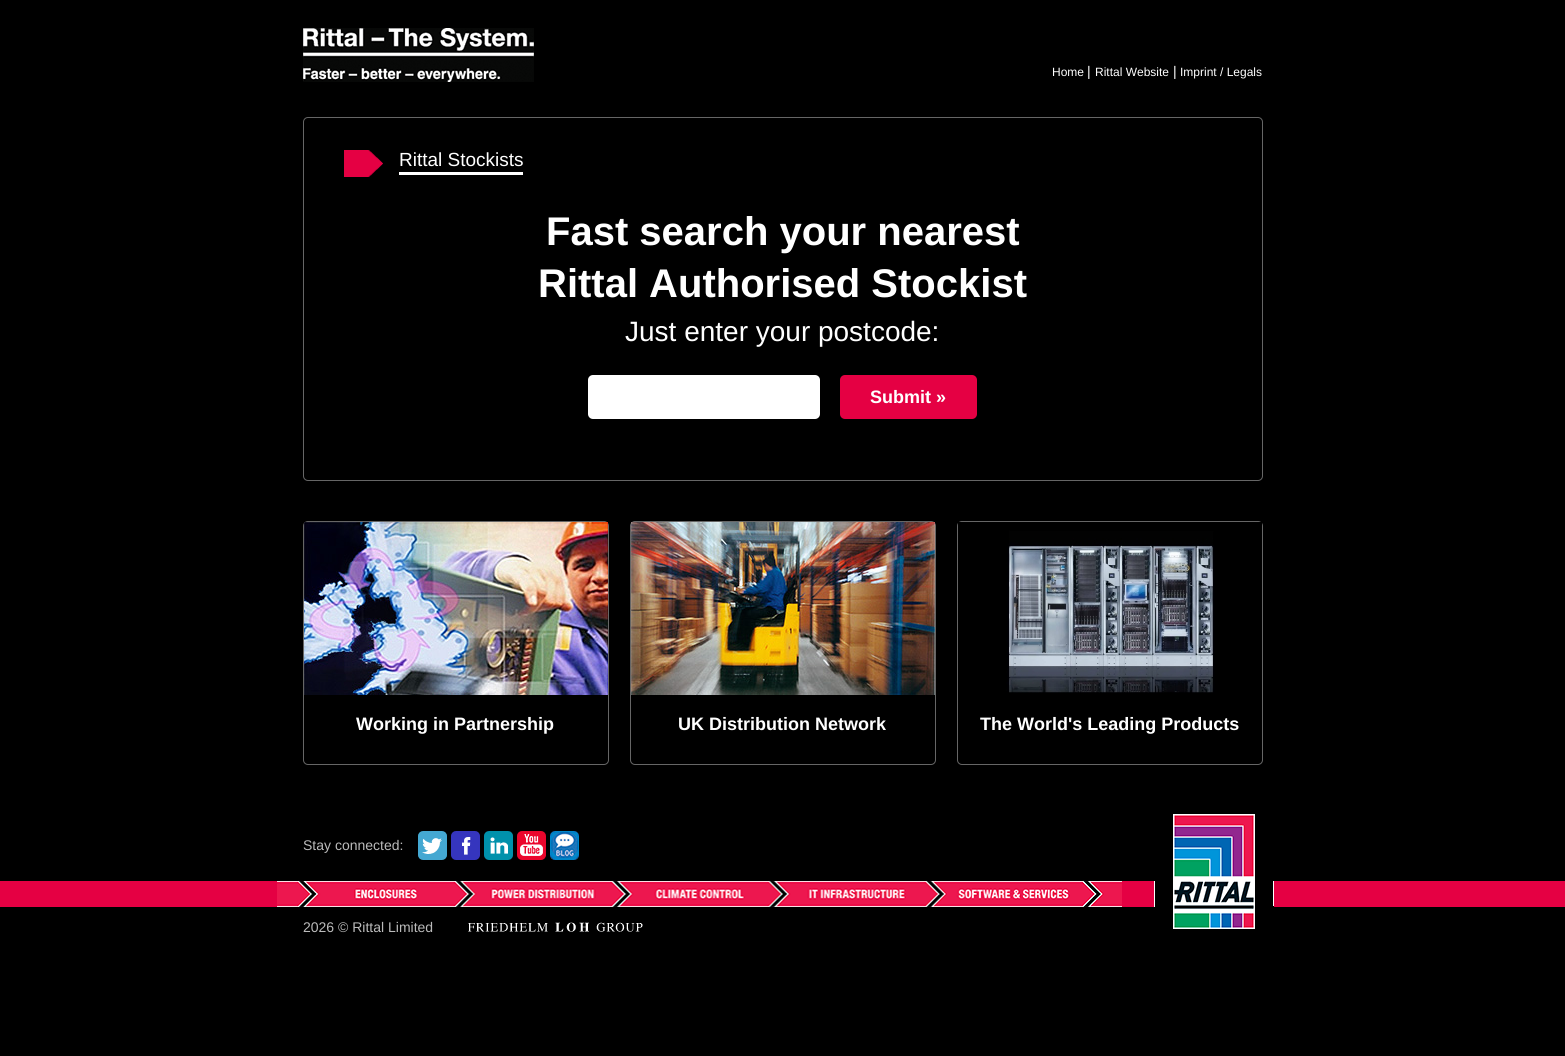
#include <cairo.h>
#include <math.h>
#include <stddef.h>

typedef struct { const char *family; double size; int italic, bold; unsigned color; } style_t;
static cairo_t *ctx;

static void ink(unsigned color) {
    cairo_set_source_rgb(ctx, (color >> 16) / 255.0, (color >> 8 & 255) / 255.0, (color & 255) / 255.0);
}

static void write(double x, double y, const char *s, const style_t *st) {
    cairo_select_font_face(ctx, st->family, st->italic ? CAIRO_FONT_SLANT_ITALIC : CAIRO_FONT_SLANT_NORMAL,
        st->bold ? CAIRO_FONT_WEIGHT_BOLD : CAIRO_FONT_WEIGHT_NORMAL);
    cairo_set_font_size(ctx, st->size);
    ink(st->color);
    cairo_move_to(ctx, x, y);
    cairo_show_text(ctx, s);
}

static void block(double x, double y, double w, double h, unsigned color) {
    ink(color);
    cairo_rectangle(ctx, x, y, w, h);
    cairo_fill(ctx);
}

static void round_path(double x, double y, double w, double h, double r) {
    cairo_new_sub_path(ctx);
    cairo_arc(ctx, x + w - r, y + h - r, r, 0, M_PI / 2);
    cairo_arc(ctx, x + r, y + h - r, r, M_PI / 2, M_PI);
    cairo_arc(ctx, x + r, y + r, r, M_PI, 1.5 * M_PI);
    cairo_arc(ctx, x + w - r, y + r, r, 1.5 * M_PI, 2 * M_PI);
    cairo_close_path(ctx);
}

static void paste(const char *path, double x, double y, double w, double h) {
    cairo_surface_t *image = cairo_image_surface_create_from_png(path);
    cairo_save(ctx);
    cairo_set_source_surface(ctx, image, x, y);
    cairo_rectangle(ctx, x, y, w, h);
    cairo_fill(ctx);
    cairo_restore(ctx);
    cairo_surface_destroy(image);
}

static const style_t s1 = {"Liberation Sans", 12, 0, 0, 0xffffff};
static const style_t s2 = {"Liberation Sans", 14, 0, 0, 0xffffff};
static const style_t s3 = {"Liberation Sans", 19, 0, 0, 0xffffff};
static const style_t s4 = {"Liberation Sans", 40, 0, 1, 0xffffff};
static const style_t s5 = {"Liberation Sans", 28, 0, 0, 0xffffff};
static const style_t s6 = {"Liberation Sans", 18, 0, 1, 0xffffff};
static const style_t s7 = {"Liberation Sans", 14, 0, 0, 0xbbbbbb};

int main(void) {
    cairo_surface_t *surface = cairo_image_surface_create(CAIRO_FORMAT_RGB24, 1565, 1056);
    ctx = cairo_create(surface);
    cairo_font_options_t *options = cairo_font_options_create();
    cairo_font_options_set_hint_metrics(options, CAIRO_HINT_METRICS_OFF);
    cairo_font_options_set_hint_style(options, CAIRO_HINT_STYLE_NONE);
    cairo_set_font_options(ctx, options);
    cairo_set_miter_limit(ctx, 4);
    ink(0x000000);
    cairo_paint(ctx);
    paste("pic1.png", 303, 28, 231, 54);
    write(1052, 76, "Home", &s1);
    write(1087, 76, "|", &s2);
    write(1095, 76, "Rittal Website", &s1);
    write(1173, 76, "|", &s2);
    write(1180, 76, "Imprint / Legals", &s1);
    round_path(303.5, 117.5, 959, 363, 4.5);
    ink(0x666666);
    cairo_set_line_width(ctx, 1);
    cairo_stroke(ctx);
    paste("pic2.png", 344, 150, 39, 27);
    write(399, 166, "Rittal Stockists", &s3);
    block(399, 172, 124, 3, 0xffffff);
    write(546, 245, "Fast search your nearest", &s4);
    write(538, 297, "Rittal Authorised Stockist", &s4);
    write(625, 341, "Just enter your postcode:", &s5);
    round_path(588, 375, 232, 44, 5);
    cairo_fill(ctx);
    ink(0xe50043);
    round_path(840, 375, 137, 44, 5);
    cairo_fill(ctx);
    write(870, 403, "Submit »", &s6);
    round_path(303.5, 521.5, 305, 243, 4.5);
    ink(0x666666);
    cairo_stroke(ctx);
    paste("pic3.png", 304, 522, 304, 173);
    write(356, 730, "Working in Partnership", &s6);
    round_path(630.5, 521.5, 305, 243, 4.5);
    ink(0x666666);
    cairo_stroke(ctx);
    paste("pic4.png", 631, 522, 304, 173);
    write(678, 730, "UK Distribution Network", &s6);
    round_path(957.5, 521.5, 305, 243, 4.5);
    ink(0x666666);
    cairo_stroke(ctx);
    paste("pic5.png", 958, 522, 304, 171);
    write(980, 730, "The World's Leading Products", &s6);
    block(0, 881, 1565, 26, 0xe50043);
    paste("pic6.png", 277, 881, 845, 26);
    block(1155, 881, 118, 25, 0x000000);
    block(1273, 881, 1, 26, 0xffffff);
    block(1154, 906, 120, 1, 0x000000);
    block(1154, 881, 1, 26, 0xffffff);
    paste("pic7.png", 1173, 814, 82, 115);
    write(303, 850, "Stay connected:", &s7);
    paste("pic8.png", 418, 831, 29, 29);
    paste("pic9.png", 451, 831, 29, 29);
    paste("pic10.png", 484, 831, 29, 29);
    paste("pic11.png", 517, 831, 29, 29);
    paste("pic12.png", 550, 831, 29, 29);
    write(303, 932, "2026 © Rittal Limited", &s7);
    paste("pic13.png", 468, 922, 175, 10);
    cairo_surface_write_to_png(surface, "screenshot.png");
    cairo_font_options_destroy(options);
    cairo_destroy(ctx);
    cairo_surface_destroy(surface);
    return 0;
}
